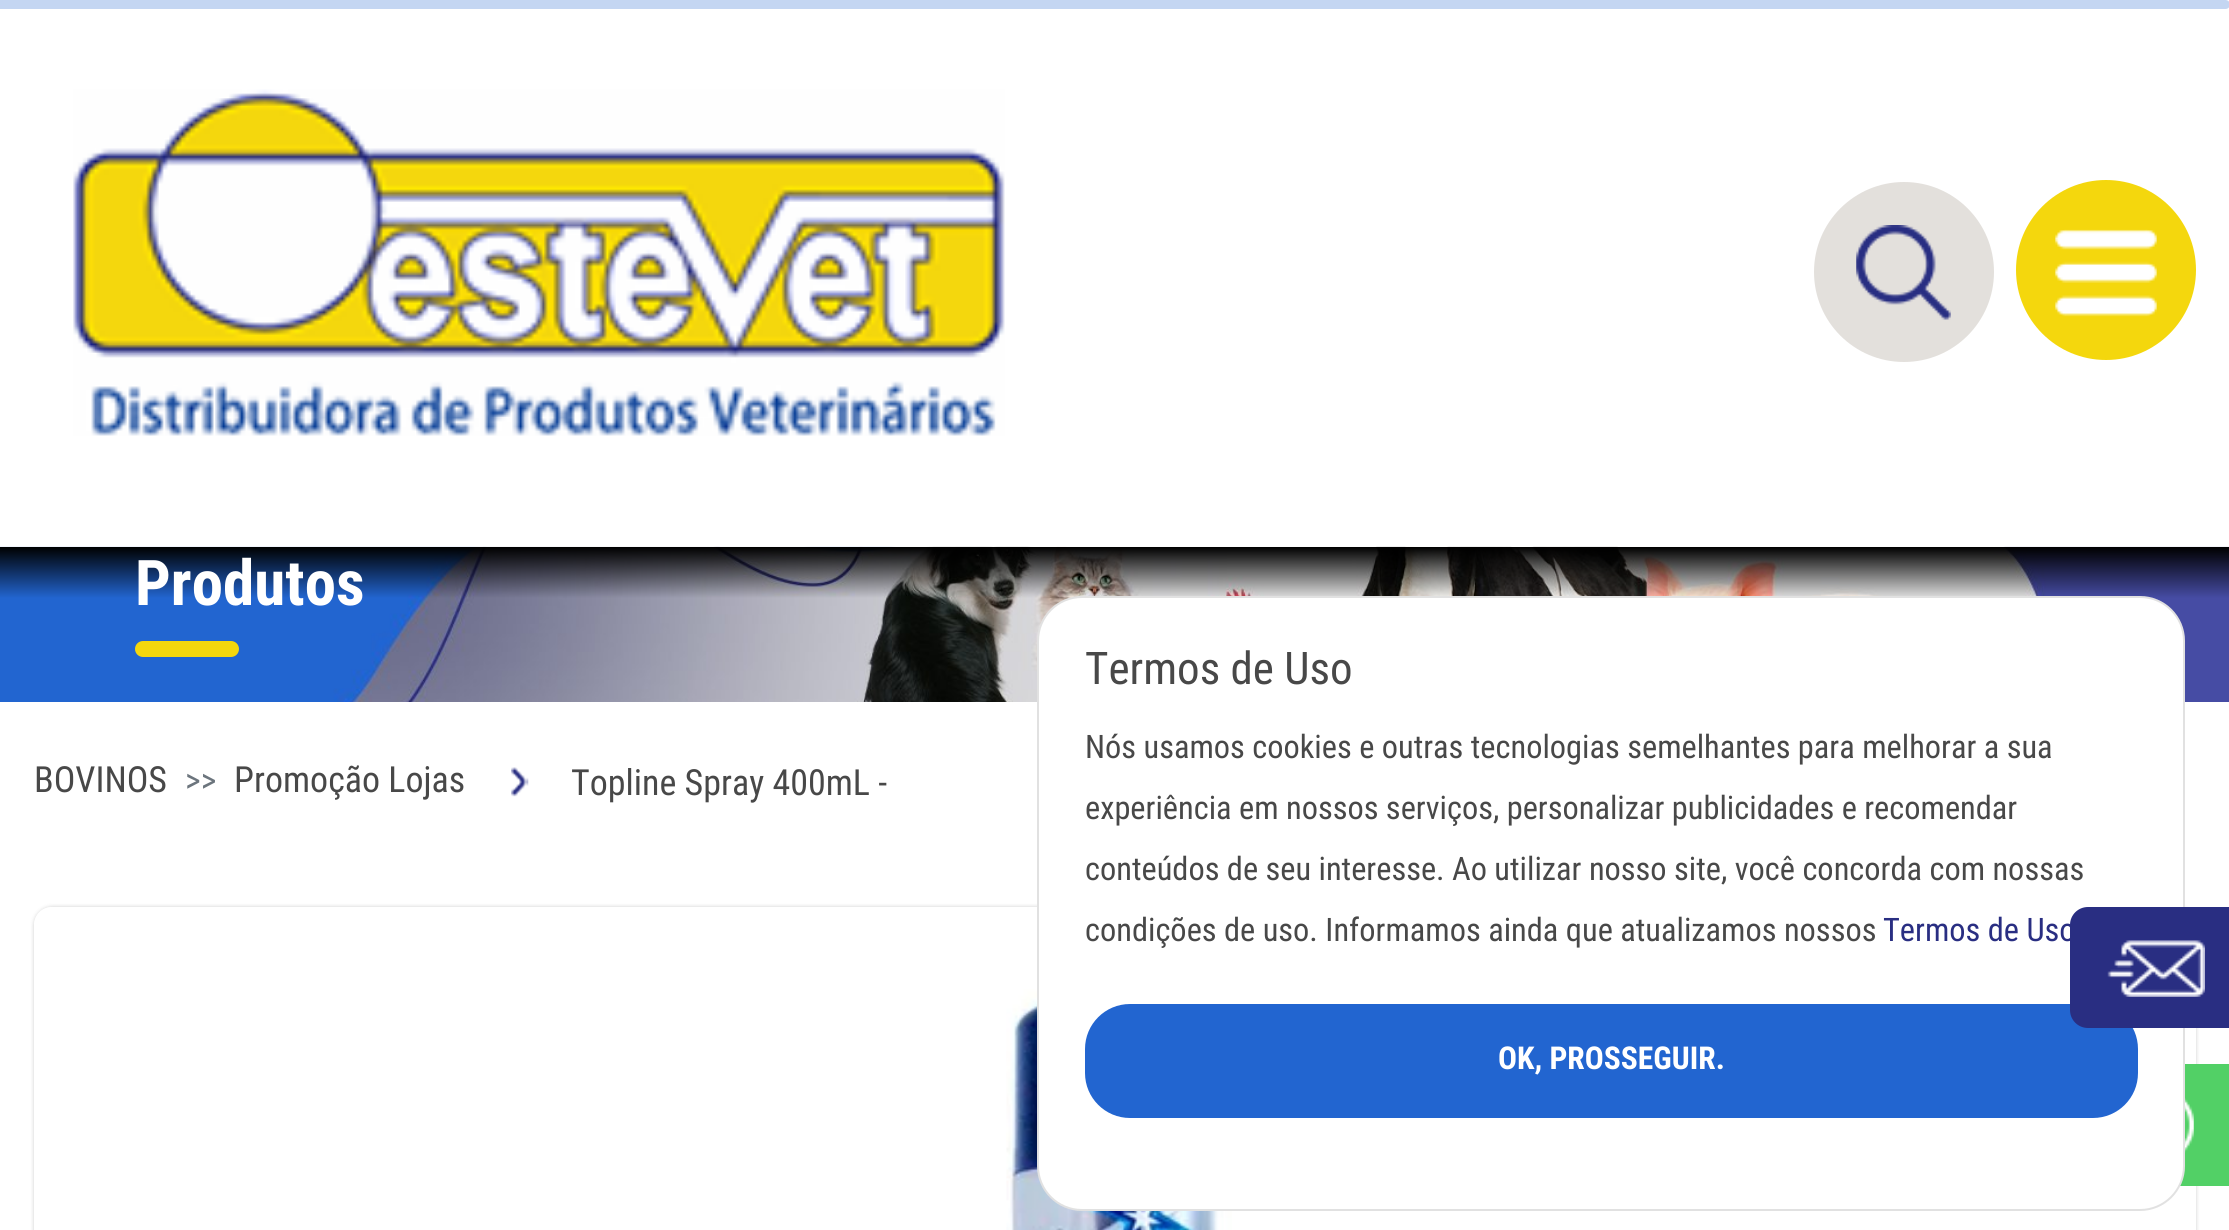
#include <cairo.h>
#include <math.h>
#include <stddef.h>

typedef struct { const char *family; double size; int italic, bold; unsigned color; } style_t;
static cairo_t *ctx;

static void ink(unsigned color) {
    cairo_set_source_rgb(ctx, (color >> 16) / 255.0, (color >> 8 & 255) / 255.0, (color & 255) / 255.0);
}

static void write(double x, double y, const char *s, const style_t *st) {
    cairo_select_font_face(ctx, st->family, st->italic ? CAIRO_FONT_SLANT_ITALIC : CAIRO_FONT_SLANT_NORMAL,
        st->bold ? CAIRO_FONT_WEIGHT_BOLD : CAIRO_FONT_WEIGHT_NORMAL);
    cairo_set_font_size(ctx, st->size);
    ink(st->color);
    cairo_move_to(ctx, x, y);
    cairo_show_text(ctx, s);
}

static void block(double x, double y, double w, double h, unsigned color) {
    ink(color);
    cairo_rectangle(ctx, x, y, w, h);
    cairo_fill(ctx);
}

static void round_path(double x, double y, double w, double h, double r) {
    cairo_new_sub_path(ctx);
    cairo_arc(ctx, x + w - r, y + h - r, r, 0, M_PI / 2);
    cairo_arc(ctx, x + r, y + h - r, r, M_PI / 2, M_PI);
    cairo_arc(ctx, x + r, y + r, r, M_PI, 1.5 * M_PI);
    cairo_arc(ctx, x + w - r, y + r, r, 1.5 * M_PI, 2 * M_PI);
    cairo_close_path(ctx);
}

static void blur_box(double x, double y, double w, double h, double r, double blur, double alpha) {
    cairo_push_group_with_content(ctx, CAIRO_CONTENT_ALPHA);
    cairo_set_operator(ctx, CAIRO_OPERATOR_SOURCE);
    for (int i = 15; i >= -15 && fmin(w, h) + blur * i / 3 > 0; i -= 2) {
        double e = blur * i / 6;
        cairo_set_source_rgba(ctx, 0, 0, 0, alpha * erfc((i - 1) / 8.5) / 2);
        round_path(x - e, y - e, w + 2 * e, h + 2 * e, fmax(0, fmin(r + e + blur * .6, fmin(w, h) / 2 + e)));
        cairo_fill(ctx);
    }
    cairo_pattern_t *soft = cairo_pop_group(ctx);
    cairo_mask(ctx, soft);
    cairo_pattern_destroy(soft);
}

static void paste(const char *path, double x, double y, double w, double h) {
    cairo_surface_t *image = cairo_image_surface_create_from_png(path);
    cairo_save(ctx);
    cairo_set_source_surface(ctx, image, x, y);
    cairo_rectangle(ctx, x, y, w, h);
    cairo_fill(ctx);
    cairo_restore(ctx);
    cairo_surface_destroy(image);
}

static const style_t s1 = {"Roboto Condensed", 63, 0, 1, 0xffffff};
static const style_t s2 = {"Roboto Condensed", 36, 0, 0, 0x484848};
static const style_t s3 = {"Roboto Condensed", 34, 0, 0, 0x6c757d};
static const style_t s4 = {"Roboto Condensed", 45, 0, 0, 0x484848};
static const style_t s5 = {"Roboto Condensed", 32.4, 0, 0, 0x484848};
static const style_t s6 = {"Roboto Condensed", 32.4, 0, 0, 0x292e82};
static const style_t s7 = {"Roboto Condensed", 31.5, 0, 1, 0xffffff};

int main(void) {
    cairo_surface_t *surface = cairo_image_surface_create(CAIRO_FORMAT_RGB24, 2229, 1230);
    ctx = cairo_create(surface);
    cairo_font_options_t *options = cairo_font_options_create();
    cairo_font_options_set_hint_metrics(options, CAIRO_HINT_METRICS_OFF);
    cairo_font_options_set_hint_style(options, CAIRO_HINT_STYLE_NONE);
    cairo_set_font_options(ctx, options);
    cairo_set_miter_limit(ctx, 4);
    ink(0xffffff);
    cairo_paint(ctx);
    ink(0xc4d6f2);
    cairo_new_path(ctx);
    cairo_move_to(ctx, 0, 0);
    cairo_line_to(ctx, 2225.5, 0);
    cairo_curve_to(ctx, 2228, 0, 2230, 2, 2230, 4.5);
    cairo_curve_to(ctx, 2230, 7, 2228, 9, 2225.5, 9);
    cairo_line_to(ctx, 0, 9);
    cairo_close_path(ctx);
    cairo_fill(ctx);
    paste("pic1.png", 73, 89, 932, 347);
    ink(0xe3e0dc);
    cairo_arc(ctx, 1904, 272, 90, 0, 2 * M_PI);
    cairo_fill(ctx);
    paste("pic2.png", 1856, 225, 95, 95);
    ink(0xf4d70d);
    cairo_arc(ctx, 2106, 270, 90, 0, 2 * M_PI);
    cairo_fill(ctx);
    paste("pic3.png", 2055, 229, 102, 88);
    paste("pic4.png", 0, 546, 2229, 156);
    write(135, 605, "Produtos", &s1);
    ink(0xf4d70d);
    round_path(135, 641, 104, 16, 8);
    cairo_fill(ctx);
    write(34, 792, "BOVINOS", &s2);
    write(185, 792, ">>", &s3);
    write(234, 792, "Promoção Lojas", &s2);
    paste("pic5.png", 511, 767, 18, 30);
    write(571, 795, "Topline Spray 400mL -", &s2);
    cairo_save(ctx);
    cairo_set_fill_rule(ctx, CAIRO_FILL_RULE_EVEN_ODD);
    cairo_new_path(ctx);
    cairo_move_to(ctx, 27, 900);
    cairo_line_to(ctx, 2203, 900);
    cairo_line_to(ctx, 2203, 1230);
    cairo_line_to(ctx, 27, 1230);
    cairo_close_path(ctx);
    cairo_move_to(ctx, 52, 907);
    cairo_line_to(ctx, 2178, 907);
    cairo_curve_to(ctx, 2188, 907, 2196, 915, 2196, 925);
    cairo_line_to(ctx, 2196, 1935);
    cairo_curve_to(ctx, 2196, 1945, 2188, 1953, 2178, 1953);
    cairo_line_to(ctx, 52, 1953);
    cairo_curve_to(ctx, 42, 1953, 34, 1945, 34, 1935);
    cairo_line_to(ctx, 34, 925);
    cairo_curve_to(ctx, 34, 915, 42, 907, 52, 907);
    cairo_close_path(ctx);
    cairo_clip(ctx);
    ink(0x000000);
    blur_box(34, 907, 2162, 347, 18, 2, 0.2);
    cairo_restore(ctx);
    paste("pic6.png", 1006, 989, 226, 241);
    block(2180, 1064, 49, 122, 0x52d066);
    ink(0xffffff);
    round_path(1037, 596, 1148, 615, 45);
    cairo_fill(ctx);
    round_path(1038, 597, 1146, 613, 44);
    cairo_set_source_rgba(ctx, 0, 0, 0, 0.12);
    cairo_stroke(ctx);
    write(1085, 684, "Termos de Uso", &s4);
    write(1085, 758, "Nós usamos cookies e outras tecnologias semelhantes para melhorar a sua", &s5);
    write(1085, 819, "experiência em nossos serviços, personalizar publicidades e recomendar", &s5);
    write(1085, 880, "conteúdos de seu interesse. Ao utilizar nosso site, você concorda com nossas", &s5);
    write(1085, 941, "condições de uso. Informamos ainda que atualizamos nossos", &s5);
    write(1883, 941, "Termos de Uso", &s6);
    ink(0x2265d0);
    round_path(1085, 1004, 1053, 114, 45);
    cairo_fill(ctx);
    write(1498, 1069, "OK, PROSSEGUIR.", &s7);
    ink(0x292e82);
    cairo_new_path(ctx);
    cairo_move_to(ctx, 2088, 907);
    cairo_line_to(ctx, 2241, 907);
    cairo_line_to(ctx, 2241, 1028);
    cairo_line_to(ctx, 2088, 1028);
    cairo_curve_to(ctx, 2078, 1028, 2070, 1020, 2070, 1010);
    cairo_line_to(ctx, 2070, 925);
    cairo_curve_to(ctx, 2070, 915, 2078, 907, 2088, 907);
    cairo_close_path(ctx);
    cairo_fill(ctx);
    paste("pic7.png", 2107, 940, 98, 57);
    paste("pic8.png", 2185, 1098, 9, 55);
    cairo_surface_write_to_png(surface, "screenshot.png");
    cairo_font_options_destroy(options);
    cairo_destroy(ctx);
    cairo_surface_destroy(surface);
    return 0;
}
